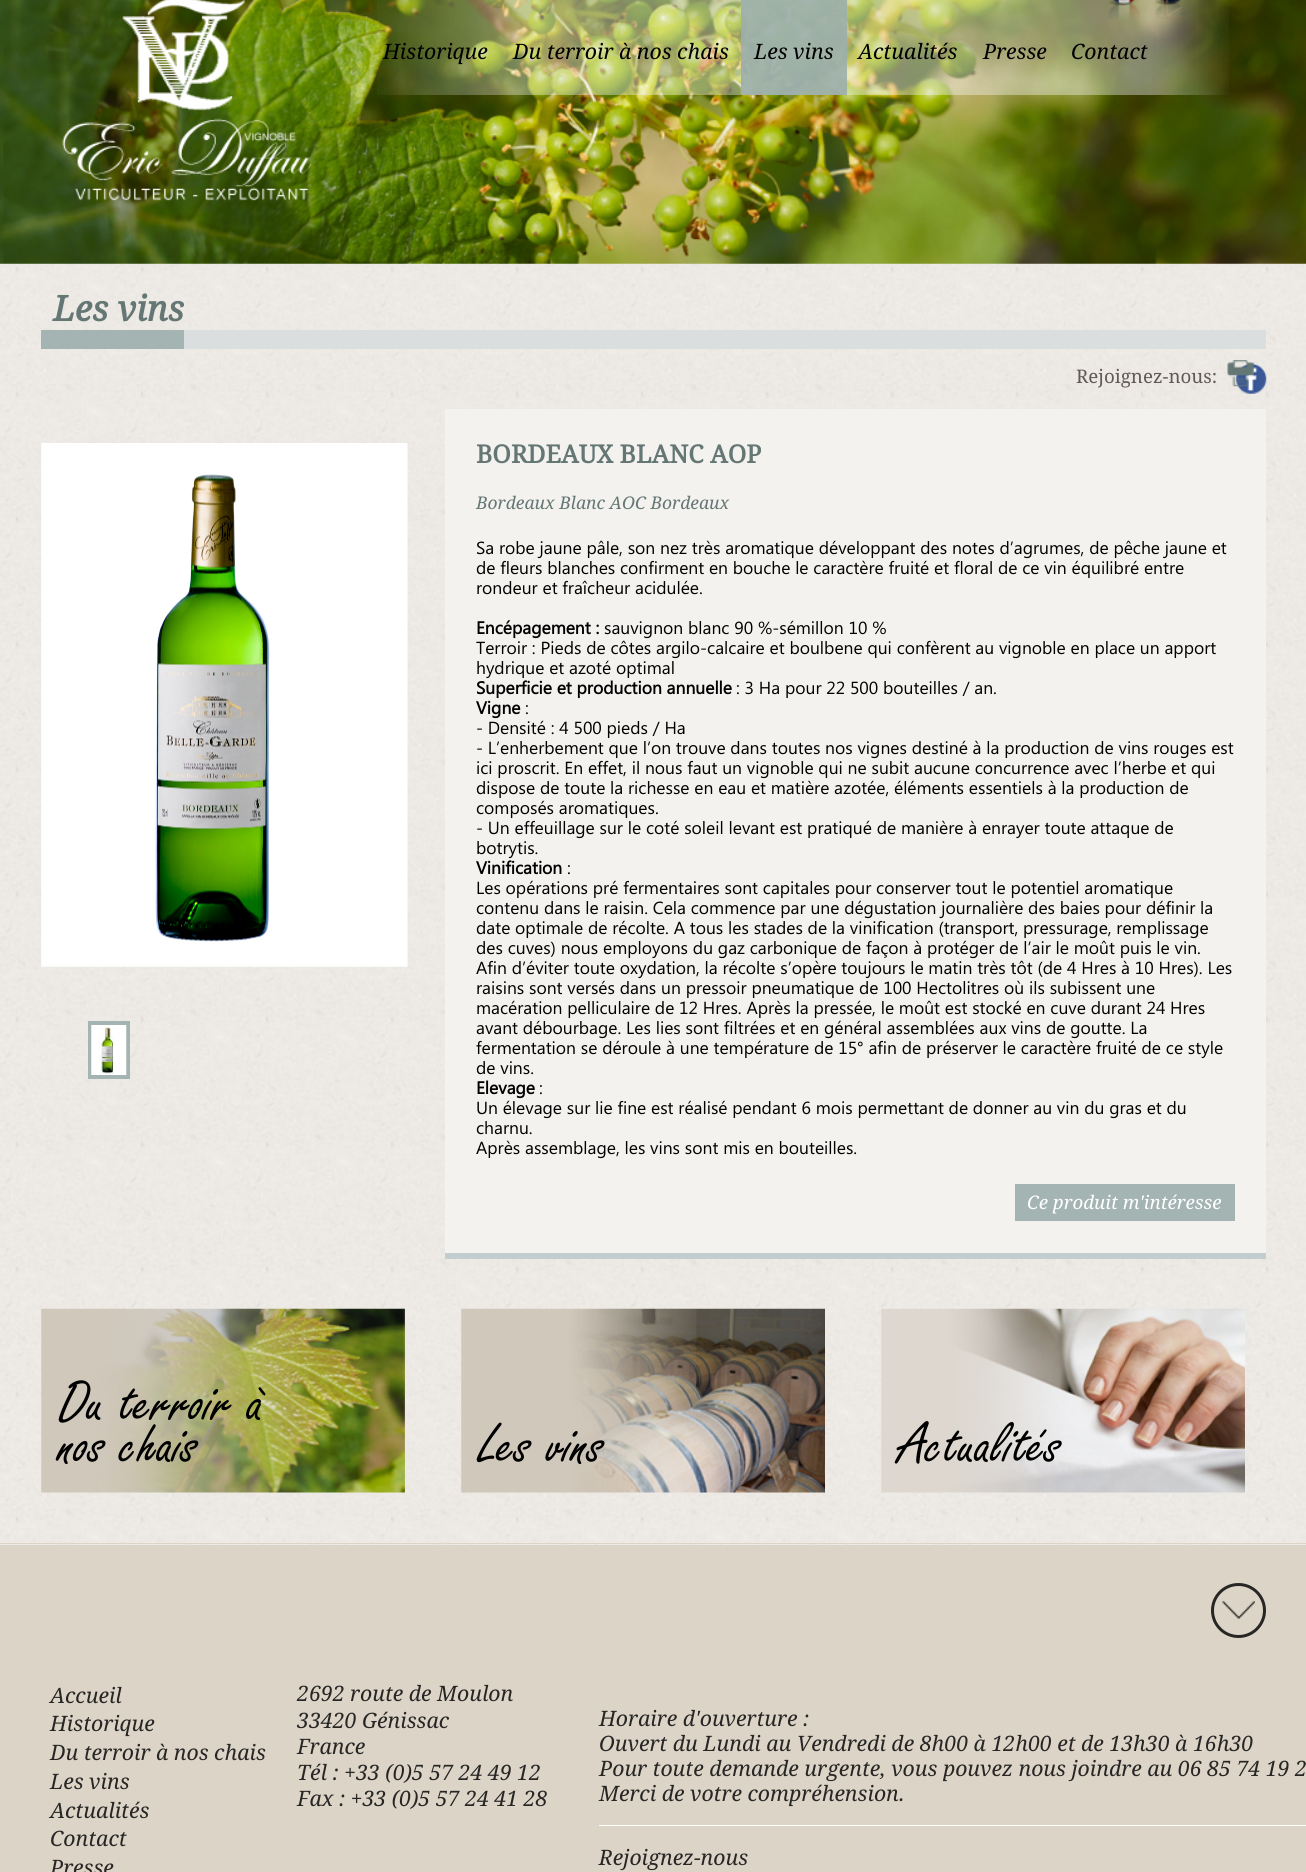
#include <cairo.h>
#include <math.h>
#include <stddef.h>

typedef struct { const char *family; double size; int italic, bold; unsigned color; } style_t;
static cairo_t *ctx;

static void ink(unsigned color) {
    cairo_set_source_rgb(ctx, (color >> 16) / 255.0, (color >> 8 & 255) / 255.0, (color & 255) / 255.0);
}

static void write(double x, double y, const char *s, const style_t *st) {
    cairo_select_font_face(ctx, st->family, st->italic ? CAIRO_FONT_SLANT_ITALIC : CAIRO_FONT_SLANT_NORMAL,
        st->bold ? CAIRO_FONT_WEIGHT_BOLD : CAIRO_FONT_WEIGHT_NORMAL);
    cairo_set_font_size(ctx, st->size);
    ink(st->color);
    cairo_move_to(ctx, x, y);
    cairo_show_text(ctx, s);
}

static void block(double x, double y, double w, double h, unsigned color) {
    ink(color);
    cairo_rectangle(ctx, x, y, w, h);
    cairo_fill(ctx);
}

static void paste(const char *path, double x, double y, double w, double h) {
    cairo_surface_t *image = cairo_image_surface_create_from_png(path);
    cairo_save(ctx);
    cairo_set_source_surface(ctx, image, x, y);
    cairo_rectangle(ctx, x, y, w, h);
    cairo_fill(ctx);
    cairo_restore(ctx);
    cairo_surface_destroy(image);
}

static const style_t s1 = {"Droid Serif", 21.25, 1, 0, 0x000000};
static const style_t s2 = {"Droid Serif", 35, 1, 1, 0x647775};
static const style_t s3 = {"Droid Serif", 18.75, 0, 0, 0x615959};
static const style_t s4 = {"Droid Serif", 25, 0, 1, 0x647775};
static const style_t s5 = {"Droid Serif", 17.5, 1, 0, 0x647775};
static const style_t s6 = {"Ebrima", 17.5, 0, 0, 0x000000};
static const style_t s7 = {"Ebrima", 17.5, 0, 1, 0x000000};
static const style_t s8 = {"Droid Serif", 18.75, 1, 0, 0xffffff};
static const style_t s9 = {"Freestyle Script", 62.5, 0, 0, 0x000000};
static const style_t s10 = {"Droid Serif", 21.25, 1, 0, 0x272625};

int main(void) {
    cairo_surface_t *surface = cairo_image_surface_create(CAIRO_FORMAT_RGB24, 1306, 1872);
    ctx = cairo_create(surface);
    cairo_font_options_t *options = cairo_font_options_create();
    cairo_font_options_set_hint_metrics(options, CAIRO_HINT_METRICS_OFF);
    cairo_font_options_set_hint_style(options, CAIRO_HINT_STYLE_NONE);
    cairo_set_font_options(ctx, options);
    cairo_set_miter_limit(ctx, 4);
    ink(0xffffff);
    cairo_paint(ctx);
    paste("pic1.png", 0, 263, 1306, 1282);
    paste("pic2.png", 0, 0, 1306, 264);
    paste("pic3.png", 62, 0, 250, 201);
    paste("pic6.png", 377, 0, 852, 95);
    paste("pic4.png", 1108, 0, 32, 19);
    paste("pic5.png", 1155, 0, 31, 19);
    write(383, 59, "Historique", &s1);
    write(513, 59, "Du terroir à nos chais", &s1);
    cairo_set_source_rgba(ctx, 0.612, 0.686, 0.678, 0.9);
    cairo_rectangle(ctx, 741, 0, 106, 95);
    cairo_fill(ctx);
    write(754, 59, "Les vins", &s1);
    write(858, 59, "Actualités", &s1);
    write(983, 59, "Presse", &s1);
    write(1071, 59, "Contact", &s1);
    block(184, 330, 1082, 19, 0xdbdede);
    block(41, 330, 143, 19, 0xa4b4b2);
    write(53, 321, "Les vins", &s2);
    write(1076, 383, "Rejoignez-nous:", &s3);
    paste("pic7.png", 1236, 363, 31, 31);
    paste("pic8.png", 1227, 360, 27, 27);
    paste("pic9.png", 41, 443, 367, 524);
    cairo_rectangle(ctx, 90, 1023, 38, 54);
    ink(0xa4b4b2);
    cairo_set_line_width(ctx, 4);
    cairo_stroke(ctx);
    paste("pic10.png", 91, 1025, 36, 50);
    block(445, 409, 821, 844, 0xf4f2ef);
    block(445, 1253, 821, 6, 0xc2cdcf);
    write(476, 463, "BORDEAUX BLANC AOP", &s4);
    write(476, 509, "Bordeaux Blanc AOC Bordeaux", &s5);
    write(476, 554, "Sa robe jaune pâle, son nez très aromatique développant des notes d’agrumes, de pêche jaune et", &s6);
    write(476, 574, "de fleurs blanches confirment en bouche le caractère fruité et floral de ce vin équilibré entre", &s6);
    write(476, 594, "rondeur et fraîcheur acidulée.", &s6);
    write(476, 634, "Encépagement :", &s7);
    write(604, 634, "sauvignon blanc 90 %-sémillon 10 %", &s6);
    write(476, 654, "Terroir : Pieds de côtes argilo-calcaire et boulbene qui confèrent au vignoble en place un apport", &s6);
    write(476, 674, "hydrique et azoté optimal", &s6);
    write(476, 694, "Superficie et production annuelle", &s7);
    write(736, 694, ": 3 Ha pour 22 500 bouteilles / an.", &s6);
    write(476, 714, "Vigne", &s7);
    write(525, 714, ":", &s6);
    write(476, 734, "- Densité : 4 500 pieds / Ha", &s6);
    write(476, 754, "- L’enherbement que l’on trouve dans toutes nos vignes destiné à la production de vins rouges est", &s6);
    write(476, 774, "ici proscrit. En effet, il nous faut un vignoble qui ne subit aucune concurrence avec l’herbe et qui", &s6);
    write(476, 794, "dispose de toute la richesse en eau et matière azotée, éléments essentiels à la production de", &s6);
    write(476, 814, "composés aromatiques.", &s6);
    write(476, 834, "- Un effeuillage sur le coté soleil levant est pratiqué de manière à enrayer toute attaque de", &s6);
    write(476, 854, "botrytis.", &s6);
    write(476, 874, "Vinification", &s7);
    write(567, 874, ":", &s6);
    write(476, 894, "Les opérations pré fermentaires sont capitales pour conserver tout le potentiel aromatique", &s6);
    write(476, 914, "contenu dans le raisin. Cela commence par une dégustation journalière des baies pour définir la", &s6);
    write(476, 934, "date optimale de récolte. A tous les stades de la vinification (transport, pressurage, remplissage", &s6);
    write(476, 954, "des cuves) nous employons du gaz carbonique de façon à protéger de l’air le moût puis le vin.", &s6);
    write(476, 974, "Afin d’éviter toute oxydation, la récolte s’opère toujours le matin très tôt (de 4 Hres à 10 Hres). Les", &s6);
    write(476, 994, "raisins sont versés dans un pressoir pneumatique de 100 Hectolitres où ils subissent une", &s6);
    write(476, 1014, "macération pelliculaire de 12 Hres. Après la pressée, le moût est stocké en cuve durant 24 Hres", &s6);
    write(476, 1034, "avant débourbage. Les lies sont filtrées et en général assemblées aux vins de goutte. La", &s6);
    write(476, 1054, "fermentation se déroule à une température de 15° afin de préserver le caractère fruité de ce style", &s6);
    write(476, 1074, "de vins.", &s6);
    write(476, 1094, "Elevage", &s7);
    write(539, 1094, ":", &s6);
    write(476, 1114, "Un élevage sur lie fine est réalisé pendant 6 mois permettant de donner au vin du gras et du", &s6);
    write(476, 1134, "charnu.", &s6);
    write(476, 1154, "Après assemblage, les vins sont mis en bouteilles.", &s6);
    block(1015, 1184, 220, 37, 0xa4b4b2);
    write(1027, 1209, "Ce produit m'intéresse", &s8);
    paste("pic11.png", 41, 1308, 364, 185);
    write(59, 1421, "Du terroir à", &s9);
    write(59, 1463, "nos chais", &s9);
    paste("pic12.png", 461, 1308, 364, 185);
    write(479, 1463, "Les vins", &s9);
    paste("pic13.png", 881, 1308, 364, 185);
    write(899, 1463, "Actualités", &s9);
    block(0, 1543, 1306, 1, 0xdbd4c7);
    block(0, 1545, 1306, 327, 0xdbd4c7);
    paste("pic14.png", 1222, 1601, 33, 18);
    cairo_arc(ctx, 1238.5, 1610.5, 26, 0, 2 * M_PI);
    ink(0x272625);
    cairo_set_line_width(ctx, 3);
    cairo_stroke(ctx);
    write(50, 1703, "Accueil", &s10);
    write(50, 1731, "Historique", &s10);
    write(50, 1760, "Du terroir à nos chais", &s10);
    write(50, 1789, "Les vins", &s10);
    write(50, 1818, "Actualités", &s10);
    write(50, 1846, "Contact", &s10);
    write(50, 1875, "Presse", &s10);
    write(297, 1701, "2692 route de Moulon", &s10);
    write(297, 1728, "33420 Génissac", &s10);
    write(297, 1754, "France", &s10);
    write(297, 1780, "Tél : +33 (0)5 57 24 49 12", &s10);
    write(297, 1806, "Fax : +33 (0)5 57 24 41 28", &s10);
    block(599, 1825, 707, 1, 0xffffff);
    write(599, 1726, "Horaire d'ouverture :", &s10);
    write(599, 1751, "Ouvert du Lundi au Vendredi de 8h00 à 12h00 et de 13h30 à 16h30", &s10);
    write(599, 1776, "Pour toute demande urgente, vous pouvez nous joindre au 06 85 74 19 2", &s10);
    write(599, 1801, "Merci de votre compréhension.", &s10);
    write(599, 1865, "Rejoignez-nous", &s10);
    cairo_surface_write_to_png(surface, "screenshot.png");
    cairo_font_options_destroy(options);
    cairo_destroy(ctx);
    cairo_surface_destroy(surface);
    return 0;
}
